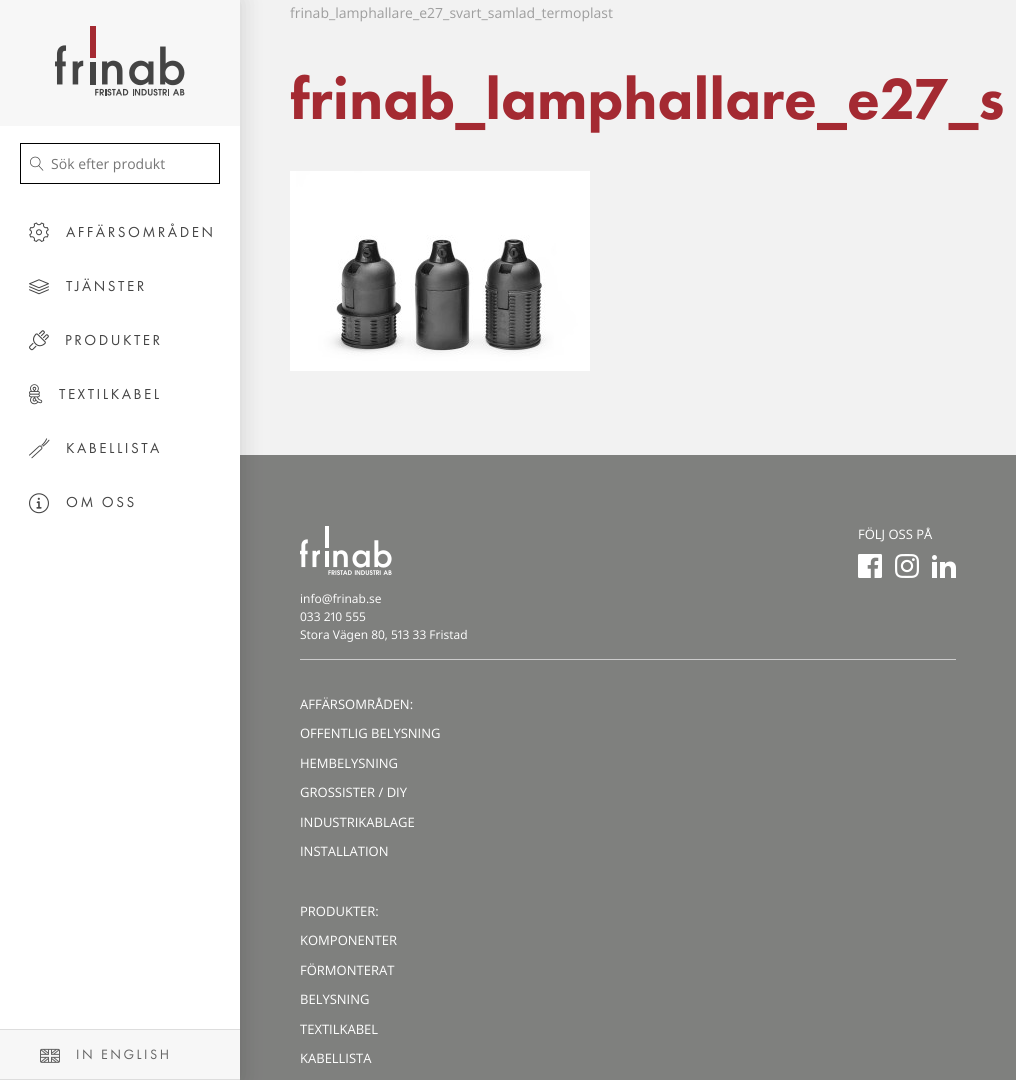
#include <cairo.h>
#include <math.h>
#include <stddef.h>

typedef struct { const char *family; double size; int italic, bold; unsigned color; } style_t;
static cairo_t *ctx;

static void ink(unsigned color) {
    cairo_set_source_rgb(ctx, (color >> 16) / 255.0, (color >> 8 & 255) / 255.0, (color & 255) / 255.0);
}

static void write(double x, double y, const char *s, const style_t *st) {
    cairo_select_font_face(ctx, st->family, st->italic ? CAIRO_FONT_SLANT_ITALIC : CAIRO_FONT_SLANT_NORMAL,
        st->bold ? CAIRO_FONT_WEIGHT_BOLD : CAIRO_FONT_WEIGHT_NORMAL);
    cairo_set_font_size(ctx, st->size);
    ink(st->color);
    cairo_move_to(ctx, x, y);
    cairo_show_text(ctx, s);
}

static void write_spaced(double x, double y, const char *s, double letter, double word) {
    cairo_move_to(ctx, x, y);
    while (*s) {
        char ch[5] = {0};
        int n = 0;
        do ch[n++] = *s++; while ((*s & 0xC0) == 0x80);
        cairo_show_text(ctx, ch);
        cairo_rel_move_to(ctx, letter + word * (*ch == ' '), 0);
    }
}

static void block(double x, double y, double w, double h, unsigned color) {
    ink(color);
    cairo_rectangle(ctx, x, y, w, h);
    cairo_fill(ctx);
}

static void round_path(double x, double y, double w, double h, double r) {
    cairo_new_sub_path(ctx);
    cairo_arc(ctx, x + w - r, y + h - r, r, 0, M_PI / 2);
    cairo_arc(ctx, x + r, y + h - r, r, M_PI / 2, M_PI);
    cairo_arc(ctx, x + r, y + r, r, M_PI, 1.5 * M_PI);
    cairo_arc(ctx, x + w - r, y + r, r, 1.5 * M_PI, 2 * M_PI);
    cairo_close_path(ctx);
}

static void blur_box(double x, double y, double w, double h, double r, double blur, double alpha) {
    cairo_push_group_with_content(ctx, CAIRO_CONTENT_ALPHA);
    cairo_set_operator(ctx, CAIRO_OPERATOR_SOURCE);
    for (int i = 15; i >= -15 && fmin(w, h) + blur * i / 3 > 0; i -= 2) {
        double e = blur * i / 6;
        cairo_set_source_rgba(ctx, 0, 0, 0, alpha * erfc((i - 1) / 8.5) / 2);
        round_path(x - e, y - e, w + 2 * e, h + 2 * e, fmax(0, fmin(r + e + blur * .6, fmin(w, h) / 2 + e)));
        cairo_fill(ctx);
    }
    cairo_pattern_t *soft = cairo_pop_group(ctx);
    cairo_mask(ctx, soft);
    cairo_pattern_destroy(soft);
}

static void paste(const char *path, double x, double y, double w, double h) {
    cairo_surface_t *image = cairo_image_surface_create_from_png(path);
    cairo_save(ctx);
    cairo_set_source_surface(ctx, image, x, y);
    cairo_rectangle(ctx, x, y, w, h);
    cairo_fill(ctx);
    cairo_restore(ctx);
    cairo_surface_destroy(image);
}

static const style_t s1 = {"Open Sans", 14, 0, 0, 0x9e9e9e};
static const style_t s2 = {"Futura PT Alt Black", 60, 0, 0, 0xa42a32};
static const style_t s3 = {"Open Sans", 14, 0, 0, 0x757575};
static const style_t s4 = {"Open Sans", 13, 0, 0, 0xffffff};
static const style_t s5 = {"Open Sans", 12, 0, 0, 0xffffff};
static const style_t s6 = {"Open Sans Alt", 12, 0, 0, 0xffffff};

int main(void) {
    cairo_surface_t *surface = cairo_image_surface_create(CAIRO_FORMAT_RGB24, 1016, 1080);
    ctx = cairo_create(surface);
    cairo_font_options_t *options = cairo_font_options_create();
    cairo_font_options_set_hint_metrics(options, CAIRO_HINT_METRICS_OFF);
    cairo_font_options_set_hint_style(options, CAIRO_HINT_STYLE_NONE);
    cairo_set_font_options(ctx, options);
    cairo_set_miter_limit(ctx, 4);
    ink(0xf2f2f2);
    cairo_paint(ctx);
    write(290, 18, "frinab_lamphallare_e27_svart_samlad_termoplast", &s1);
    write(290, 119, "frinab_lamphallare_e27_s", &s2);
    paste("pic1.png", 290, 171, 300, 200);
    block(240, 455, 776, 625, 0x7f807e);
    ink(0x000000);
    blur_box(0, 0, 240, 1080, 0, 12.5, 0.15);
    block(0, 126, 240, 903, 0xffffff);
    block(0, 0, 240, 126, 0xf7f7f7);
    paste("pic2.png", 55, 26, 130, 70);
    cairo_rectangle(ctx, 20.5, 143.5, 199, 40);
    ink(0x000000);
    cairo_set_line_width(ctx, 1);
    cairo_stroke(ctx);
    paste("pic3.png", 30, 156, 14, 15);
    write(51, 169, "Sök efter produkt", &s3);
    paste("pic4.png", 29, 222, 20, 20);
    cairo_select_font_face(ctx, "Futura PT", CAIRO_FONT_SLANT_NORMAL, CAIRO_FONT_WEIGHT_NORMAL);
    cairo_set_font_size(ctx, 15);
    ink(0x444444);
    write_spaced(66, 237, "AFFÄRSOMRÅDEN", 2.5, 0);
    paste("pic5.png", 29, 279, 20, 16);
    write_spaced(66, 291, "TJÄNSTER", 2.5, 0);
    paste("pic6.png", 29, 330, 20, 21);
    write_spaced(65, 345, "PRODUKTER", 2.5, 0);
    paste("pic7.png", 29, 384, 14, 21);
    write_spaced(59, 399, "TEXTILKABEL", 2.5, 0);
    paste("pic8.png", 29, 438, 21, 21);
    write_spaced(66, 453, "KABELLISTA", 2.5, 0);
    paste("pic9.png", 29, 493, 20, 21);
    write_spaced(66, 507, "OM OSS", 2.5, 0);
    block(0, 1030, 240, 49, 0xf7f7f7);
    block(0, 1029, 240, 1, 0xdddddd);
    block(0, 1079, 240, 1, 0xdddddd);
    paste("pic10.png", 40, 1048, 20, 15);
    cairo_set_font_size(ctx, 14);
    ink(0x636363);
    write_spaced(76, 1059, "IN ENGLISH", 2.5, 0);
    write(858, 539, "FÖLJ OSS PÅ", &s4);
    paste("pic11.png", 858, 554, 24, 24);
    paste("pic12.png", 895, 554, 24, 24);
    paste("pic13.png", 932, 555, 24, 23);
    paste("pic14.png", 300, 526, 92, 49);
    write(300, 603, "info@frinab.se", &s5);
    write(300, 621, "033 210 555", &s6);
    write(300, 639, "Stora Vägen 80, 513 33 Fristad", &s6);
    block(300, 659, 656, 1, 0xcccccc);
    write(300, 709, "AFFÄRSOMRÅDEN:", &s4);
    write(300, 738, "OFFENTLIG BELYSNING", &s4);
    write(300, 768, "HEMBELYSNING", &s4);
    write(300, 797, "GROSSISTER / DIY", &s4);
    write(300, 827, "INDUSTRIKABLAGE", &s4);
    write(300, 856, "INSTALLATION", &s4);
    write(300, 916, "PRODUKTER:", &s4);
    write(300, 945, "KOMPONENTER", &s4);
    write(300, 975, "FÖRMONTERAT", &s4);
    write(300, 1004, "BELYSNING", &s4);
    write(300, 1034, "TEXTILKABEL", &s4);
    write(300, 1063, "KABELLISTA", &s4);
    cairo_surface_write_to_png(surface, "screenshot.png");
    cairo_font_options_destroy(options);
    cairo_destroy(ctx);
    cairo_surface_destroy(surface);
    return 0;
}
